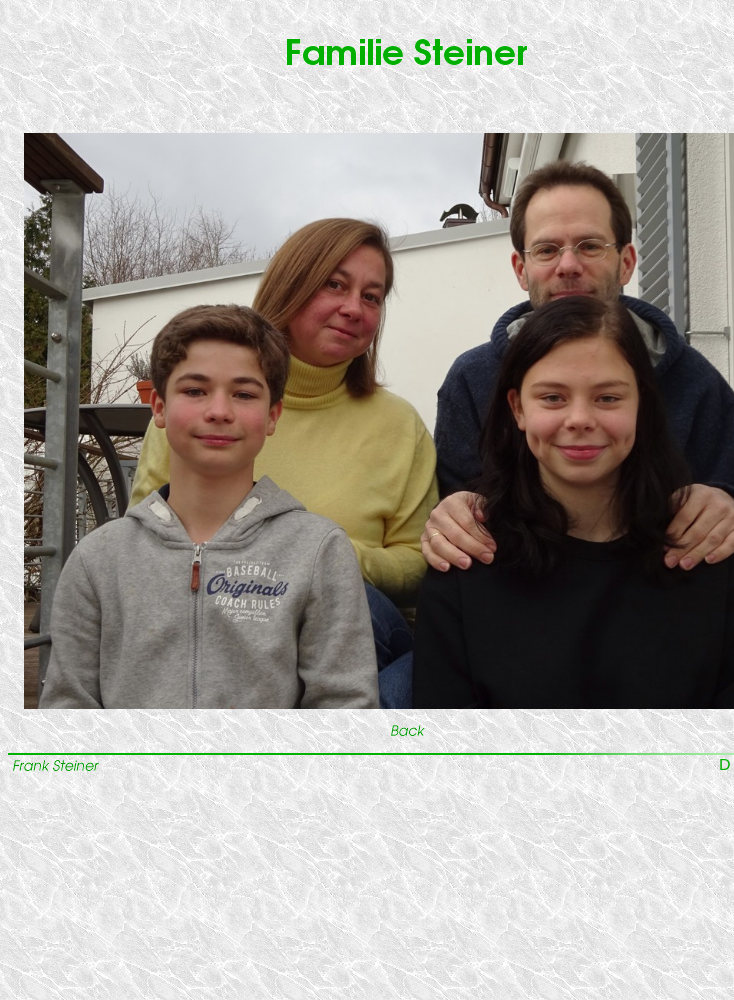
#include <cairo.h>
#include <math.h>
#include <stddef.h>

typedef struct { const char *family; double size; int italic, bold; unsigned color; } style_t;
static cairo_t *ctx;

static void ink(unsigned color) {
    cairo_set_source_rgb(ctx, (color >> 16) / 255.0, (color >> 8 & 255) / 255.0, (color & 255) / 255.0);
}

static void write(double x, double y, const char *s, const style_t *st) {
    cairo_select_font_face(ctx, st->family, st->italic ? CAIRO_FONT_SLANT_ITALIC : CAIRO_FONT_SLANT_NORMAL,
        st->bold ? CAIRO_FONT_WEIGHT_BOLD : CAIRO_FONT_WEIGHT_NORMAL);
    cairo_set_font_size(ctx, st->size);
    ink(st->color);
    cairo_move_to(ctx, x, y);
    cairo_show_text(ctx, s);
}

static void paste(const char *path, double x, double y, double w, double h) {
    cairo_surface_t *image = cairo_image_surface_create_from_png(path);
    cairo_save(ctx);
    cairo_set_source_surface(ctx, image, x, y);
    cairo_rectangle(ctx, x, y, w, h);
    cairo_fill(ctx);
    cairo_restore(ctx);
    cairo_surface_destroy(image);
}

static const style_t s1 = {"Liberation Sans", 16, 0, 0, 0x00af00};

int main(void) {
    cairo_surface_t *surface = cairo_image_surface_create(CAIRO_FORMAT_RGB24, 734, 1000);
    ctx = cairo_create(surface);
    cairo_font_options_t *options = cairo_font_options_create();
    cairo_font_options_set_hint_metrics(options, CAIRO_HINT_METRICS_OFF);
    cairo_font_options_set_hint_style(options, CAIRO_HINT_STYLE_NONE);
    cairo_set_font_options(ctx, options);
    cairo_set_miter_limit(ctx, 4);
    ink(0xffffff);
    cairo_paint(ctx);
    paste("pic1.png", 0, 0, 734, 1000);
    paste("pic2.png", 287, 39, 241, 26);
    paste("pic3.png", 24, 133, 710, 576);
    paste("pic4.png", 391, 725, 34, 11);
    paste("pic5.png", 8, 753, 726, 2);
    paste("pic6.png", 13, 760, 87, 12);
    write(719, 770, "D", &s1);
    cairo_surface_write_to_png(surface, "screenshot.png");
    cairo_font_options_destroy(options);
    cairo_destroy(ctx);
    cairo_surface_destroy(surface);
    return 0;
}
